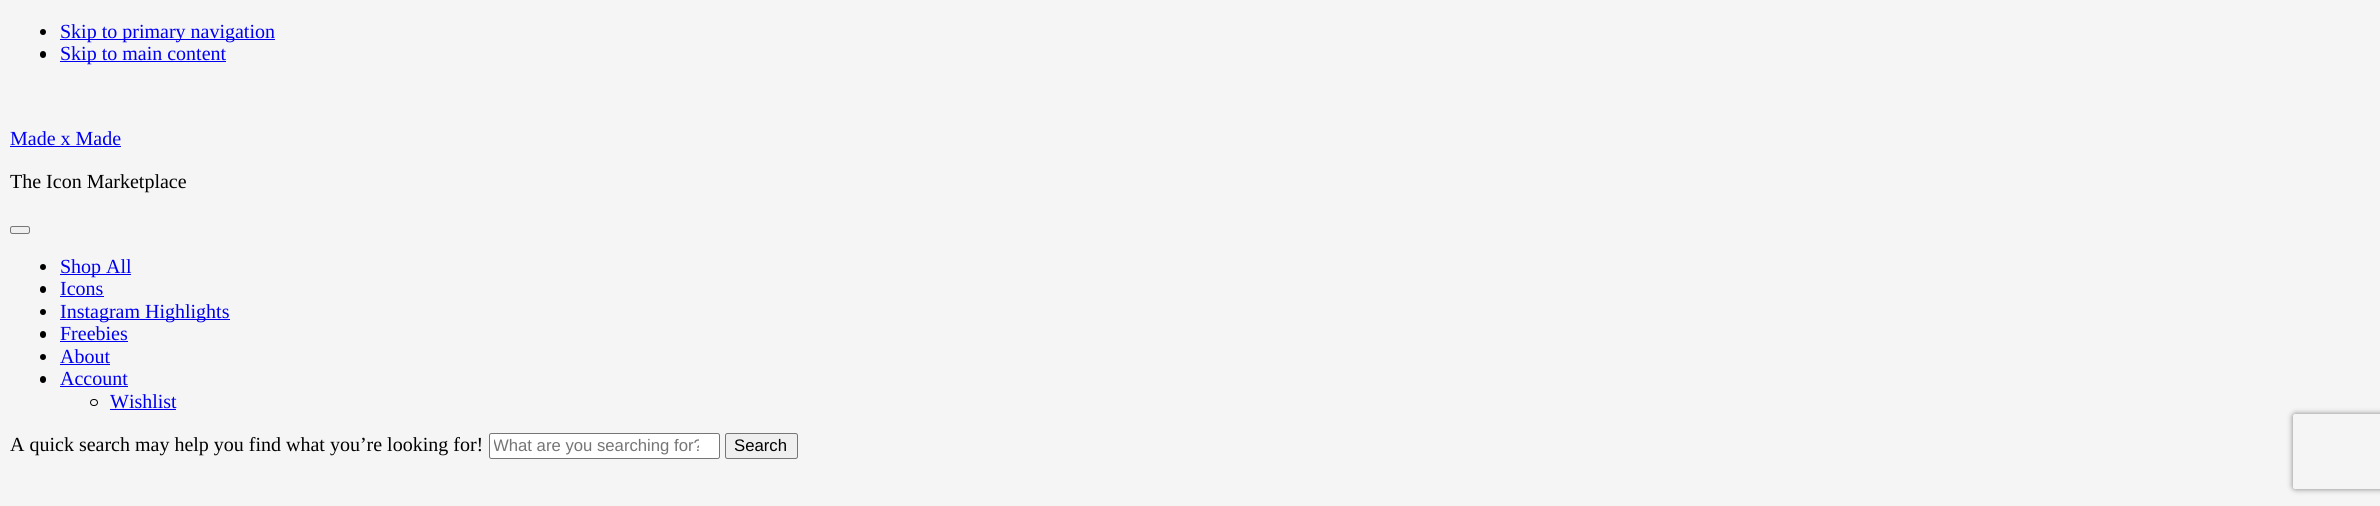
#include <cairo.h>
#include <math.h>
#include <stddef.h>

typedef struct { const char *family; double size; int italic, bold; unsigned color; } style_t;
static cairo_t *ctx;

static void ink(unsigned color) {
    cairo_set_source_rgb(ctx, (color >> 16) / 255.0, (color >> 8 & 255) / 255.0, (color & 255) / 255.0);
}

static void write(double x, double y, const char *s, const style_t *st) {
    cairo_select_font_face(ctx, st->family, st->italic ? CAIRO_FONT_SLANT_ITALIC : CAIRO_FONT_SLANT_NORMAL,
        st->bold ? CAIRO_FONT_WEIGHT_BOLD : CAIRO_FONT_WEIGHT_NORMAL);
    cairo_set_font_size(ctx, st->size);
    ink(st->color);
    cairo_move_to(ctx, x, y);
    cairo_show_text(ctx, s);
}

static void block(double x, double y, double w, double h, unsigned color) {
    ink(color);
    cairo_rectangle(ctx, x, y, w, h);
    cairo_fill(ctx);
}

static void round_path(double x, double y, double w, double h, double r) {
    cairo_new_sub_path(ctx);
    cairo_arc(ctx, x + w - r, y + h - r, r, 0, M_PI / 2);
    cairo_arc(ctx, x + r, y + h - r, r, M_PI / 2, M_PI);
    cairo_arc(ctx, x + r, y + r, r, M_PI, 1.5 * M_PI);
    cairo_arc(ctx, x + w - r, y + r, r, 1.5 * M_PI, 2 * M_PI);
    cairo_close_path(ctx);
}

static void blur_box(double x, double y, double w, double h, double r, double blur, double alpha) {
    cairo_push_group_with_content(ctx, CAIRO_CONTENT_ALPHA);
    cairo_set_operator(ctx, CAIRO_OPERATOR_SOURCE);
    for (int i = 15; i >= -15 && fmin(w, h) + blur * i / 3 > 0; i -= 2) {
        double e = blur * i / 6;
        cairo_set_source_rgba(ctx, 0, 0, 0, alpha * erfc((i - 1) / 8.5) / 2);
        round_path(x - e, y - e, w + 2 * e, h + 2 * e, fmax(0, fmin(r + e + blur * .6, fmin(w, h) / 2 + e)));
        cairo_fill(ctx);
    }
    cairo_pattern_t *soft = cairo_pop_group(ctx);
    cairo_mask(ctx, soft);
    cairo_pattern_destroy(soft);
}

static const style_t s1 = {"Liberation Serif", 20, 0, 0, 0x0000ee};
static const style_t s2 = {"Liberation Serif", 20, 0, 0, 0x000000};
static const style_t s3 = {"Liberation Sans", 16.7, 0, 0, 0x757575};
static const style_t s4 = {"Liberation Sans", 16.7, 0, 0, 0x000000};

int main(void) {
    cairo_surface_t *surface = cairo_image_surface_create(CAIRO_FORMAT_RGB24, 2380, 506);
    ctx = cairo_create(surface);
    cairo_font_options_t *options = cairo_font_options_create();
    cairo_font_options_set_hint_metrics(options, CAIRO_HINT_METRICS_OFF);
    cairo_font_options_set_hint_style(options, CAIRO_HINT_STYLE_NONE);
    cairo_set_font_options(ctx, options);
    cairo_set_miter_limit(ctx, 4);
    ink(0xf5f5f5);
    cairo_paint(ctx);
    ink(0x000000);
    cairo_arc(ctx, 43, 32, 3, 0, 2 * M_PI);
    cairo_fill(ctx);
    block(60, 39, 215, 1, 0x0000ee);
    write(60, 38, "Skip to primary navigation", &s1);
    ink(0x000000);
    round_path(40, 51, 6, 7, 3);
    cairo_fill(ctx);
    block(60, 61, 166, 1, 0x0000ee);
    write(60, 60, "Skip to main content", &s1);
    write(10, 145, "Made x Made", &s1);
    block(10, 146, 111, 1, 0x0000ee);
    write(10, 188, "The Icon Marketplace", &s2);
    ink(0xefefef);
    round_path(10.5, 226.5, 19, 7, 2);
    cairo_fill_preserve(ctx);
    ink(0x767676);
    cairo_set_line_width(ctx, 1);
    cairo_stroke(ctx);
    ink(0x000000);
    cairo_arc(ctx, 43, 267, 3, 0, 2 * M_PI);
    cairo_fill(ctx);
    block(60, 274, 71, 1, 0x0000ee);
    write(60, 273, "Shop All", &s1);
    ink(0x000000);
    round_path(40, 286, 6, 7, 3);
    cairo_fill(ctx);
    write(60, 295, "Icons", &s1);
    block(60, 296, 44, 1, 0x0000ee);
    ink(0x000000);
    cairo_new_path(ctx);
    cairo_arc(ctx, 43, 312, 3, 0, 2 * M_PI);
    cairo_fill(ctx);
    block(60, 319, 170, 1, 0x0000ee);
    write(60, 318, "Instagram Highlights", &s1);
    ink(0x000000);
    round_path(40, 331, 6, 7, 3);
    cairo_fill(ctx);
    write(60, 340, "Freebies", &s1);
    block(60, 341, 68, 1, 0x0000ee);
    ink(0x000000);
    cairo_new_path(ctx);
    cairo_arc(ctx, 43, 357, 3, 0, 2 * M_PI);
    cairo_fill(ctx);
    write(60, 363, "About", &s1);
    block(60, 364, 50, 1, 0x0000ee);
    ink(0x000000);
    round_path(40, 376, 6, 7, 3);
    cairo_fill(ctx);
    write(60, 385, "Account", &s1);
    block(60, 386, 68, 1, 0x0000ee);
    round_path(90.5, 399.5, 7, 6, 3);
    ink(0x000000);
    cairo_stroke(ctx);
    write(110, 408, "Wishlist", &s1);
    block(110, 409, 66, 1, 0x0000ee);
    write(10, 451, "A quick search may help you find what you’re looking for!", &s2);
    ink(0xffffff);
    round_path(489.5, 433.5, 230, 25, 2);
    cairo_fill_preserve(ctx);
    ink(0x767676);
    cairo_stroke(ctx);
    cairo_save(ctx);
    cairo_rectangle(ctx, 494, 436, 205, 19);
    cairo_clip(ctx);
    write(493, 451, "What are you searching for?", &s3);
    cairo_restore(ctx);
    ink(0xefefef);
    round_path(725.5, 433.5, 72, 25, 2);
    cairo_fill_preserve(ctx);
    ink(0x767676);
    cairo_stroke(ctx);
    write(734, 451, "Search", &s4);
    cairo_save(ctx);
    cairo_set_fill_rule(ctx, CAIRO_FILL_RULE_EVEN_ODD);
    cairo_new_path(ctx);
    cairo_move_to(ctx, 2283, 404);
    cairo_line_to(ctx, 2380, 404);
    cairo_line_to(ctx, 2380, 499);
    cairo_line_to(ctx, 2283, 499);
    cairo_close_path(ctx);
    cairo_move_to(ctx, 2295.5, 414);
    cairo_line_to(ctx, 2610.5, 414);
    cairo_curve_to(ctx, 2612, 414, 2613, 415, 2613, 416.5);
    cairo_line_to(ctx, 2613, 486.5);
    cairo_curve_to(ctx, 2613, 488, 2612, 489, 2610.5, 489);
    cairo_line_to(ctx, 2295.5, 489);
    cairo_curve_to(ctx, 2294, 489, 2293, 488, 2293, 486.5);
    cairo_line_to(ctx, 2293, 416.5);
    cairo_curve_to(ctx, 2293, 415, 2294, 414, 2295.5, 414);
    cairo_close_path(ctx);
    cairo_clip(ctx);
    ink(0x808080);
    blur_box(2293, 414, 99, 75, 2.5, 3, 1);
    cairo_restore(ctx);
    cairo_surface_write_to_png(surface, "screenshot.png");
    cairo_font_options_destroy(options);
    cairo_destroy(ctx);
    cairo_surface_destroy(surface);
    return 0;
}
